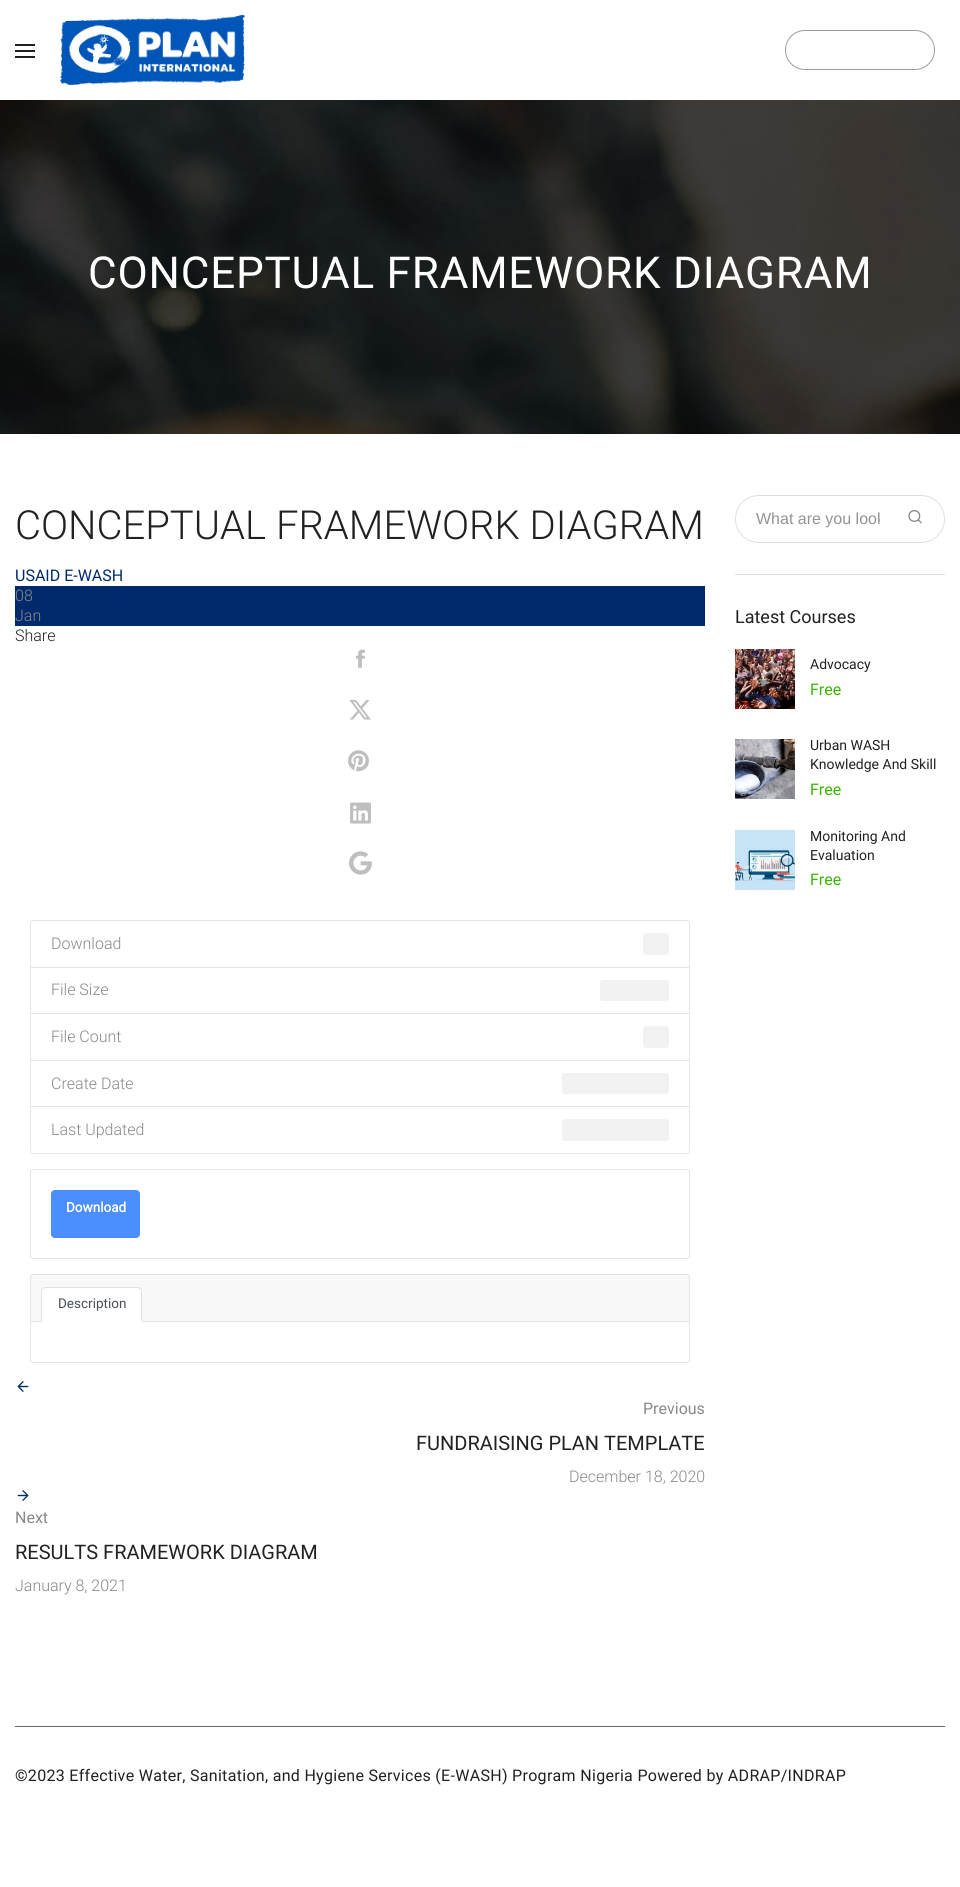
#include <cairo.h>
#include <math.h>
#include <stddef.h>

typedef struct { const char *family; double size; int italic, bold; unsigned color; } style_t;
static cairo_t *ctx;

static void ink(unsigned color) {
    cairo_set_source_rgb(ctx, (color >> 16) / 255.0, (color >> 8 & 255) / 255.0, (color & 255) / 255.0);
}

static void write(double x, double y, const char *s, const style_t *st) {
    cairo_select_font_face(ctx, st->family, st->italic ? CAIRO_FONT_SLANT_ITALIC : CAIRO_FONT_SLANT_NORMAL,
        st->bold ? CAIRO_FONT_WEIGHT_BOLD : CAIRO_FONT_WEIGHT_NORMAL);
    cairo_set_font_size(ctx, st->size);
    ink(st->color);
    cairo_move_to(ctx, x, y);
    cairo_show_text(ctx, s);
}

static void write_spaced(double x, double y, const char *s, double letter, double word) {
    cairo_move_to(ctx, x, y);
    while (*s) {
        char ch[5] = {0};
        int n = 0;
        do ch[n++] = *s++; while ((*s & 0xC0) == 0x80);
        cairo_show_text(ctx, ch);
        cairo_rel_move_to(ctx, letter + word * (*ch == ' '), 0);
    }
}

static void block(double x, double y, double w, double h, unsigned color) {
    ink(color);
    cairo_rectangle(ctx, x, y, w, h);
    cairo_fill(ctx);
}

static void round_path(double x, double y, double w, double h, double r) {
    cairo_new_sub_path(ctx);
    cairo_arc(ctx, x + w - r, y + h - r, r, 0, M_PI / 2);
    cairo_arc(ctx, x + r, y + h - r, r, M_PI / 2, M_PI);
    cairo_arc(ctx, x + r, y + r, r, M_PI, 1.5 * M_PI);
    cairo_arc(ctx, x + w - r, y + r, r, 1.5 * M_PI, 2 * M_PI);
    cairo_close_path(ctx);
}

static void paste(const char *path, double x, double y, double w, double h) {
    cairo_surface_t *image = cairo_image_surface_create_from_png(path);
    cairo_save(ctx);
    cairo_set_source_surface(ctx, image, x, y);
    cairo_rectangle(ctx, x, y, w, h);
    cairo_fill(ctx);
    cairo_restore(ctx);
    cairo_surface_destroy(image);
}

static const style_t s1 = {"Roboto Light", 40, 0, 0, 0x202121};
static const style_t s2 = {"Roboto", 16, 0, 0, 0x002a6c};
static const style_t s3 = {"Roboto Light", 16, 0, 0, 0x888888};
static const style_t s4 = {"Roboto Light", 16, 0, 0, 0x202121};
static const style_t s5 = {"Roboto", 13.5, 0, 1, 0xffffff};
static const style_t s6 = {"Roboto", 13.5, 0, 0, 0x495057};
static const style_t s7 = {"Roboto", 16, 0, 0, 0x888888};
static const style_t s8 = {"Roboto", 20, 0, 0, 0x202121};
static const style_t s9 = {"Liberation Sans", 16, 0, 0, 0x949390};
static const style_t s10 = {"Roboto", 18, 0, 0, 0x202121};
static const style_t s11 = {"Roboto", 14, 0, 0, 0x202121};
static const style_t s12 = {"Roboto", 16, 0, 0, 0x3ab500};

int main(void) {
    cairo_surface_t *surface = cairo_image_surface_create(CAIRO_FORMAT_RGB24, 960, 1887);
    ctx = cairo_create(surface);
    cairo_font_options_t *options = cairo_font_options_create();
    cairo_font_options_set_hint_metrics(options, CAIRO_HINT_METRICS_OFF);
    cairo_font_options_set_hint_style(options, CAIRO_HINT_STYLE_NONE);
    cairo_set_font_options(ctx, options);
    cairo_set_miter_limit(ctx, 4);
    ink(0xffffff);
    cairo_paint(ctx);
    block(15, 44, 20, 2, 0x202121);
    block(15, 50, 20, 2, 0x202121);
    block(15, 56, 20, 2, 0x202121);
    paste("pic1.png", 60, 15, 185, 70);
    round_path(785.5, 30.5, 149, 39, 19.5);
    ink(0x9c9c9c);
    cairo_set_line_width(ctx, 1);
    cairo_stroke(ctx);
    paste("pic2.png", 0, 100, 960, 334);
    cairo_select_font_face(ctx, "Roboto", CAIRO_FONT_SLANT_NORMAL, CAIRO_FONT_WEIGHT_NORMAL);
    cairo_set_font_size(ctx, 44);
    ink(0xffffff);
    write_spaced(88, 288, "CONCEPTUAL FRAMEWORK DIAGRAM", 0.8, 0);
    write(15, 539, "CONCEPTUAL FRAMEWORK DIAGRAM", &s1);
    write(15, 581, "USAID E-WASH", &s2);
    block(15, 586, 690, 40, 0x002a6c);
    write(15, 601, "08", &s3);
    write(15, 621, "Jan", &s3);
    write(15, 641, "Share", &s4);
    paste("pic3.png", 356, 649, 9, 19);
    paste("pic4.png", 349, 700, 22, 20);
    paste("pic5.png", 348, 750, 21, 22);
    paste("pic6.png", 350, 802, 21, 22);
    paste("pic7.png", 349, 851, 23, 24);
    cairo_new_path(ctx);
    cairo_move_to(ctx, 34, 920.5);
    cairo_line_to(ctx, 686, 920.5);
    cairo_curve_to(ctx, 688, 920.5, 689.5, 922, 689.5, 924);
    cairo_line_to(ctx, 689.5, 967.5);
    cairo_line_to(ctx, 30.5, 967.5);
    cairo_line_to(ctx, 30.5, 924);
    cairo_curve_to(ctx, 30.5, 922, 32, 920.5, 34, 920.5);
    cairo_close_path(ctx);
    ink(0xe5e5e5);
    cairo_stroke(ctx);
    write(51, 949, "Download", &s3);
    ink(0xf2f2f2);
    round_path(643, 933, 26, 22, 3);
    cairo_fill(ctx);
    cairo_rectangle(ctx, 30.5, 967.5, 659, 46);
    ink(0xe5e5e5);
    cairo_stroke(ctx);
    write(51, 995, "File Size", &s3);
    ink(0xf2f2f2);
    round_path(600, 980, 69, 21, 3);
    cairo_fill(ctx);
    cairo_rectangle(ctx, 30.5, 1013.5, 659, 47);
    ink(0xe5e5e5);
    cairo_stroke(ctx);
    write(51, 1042, "File Count", &s3);
    ink(0xf2f2f2);
    round_path(643, 1026, 26, 22, 3);
    cairo_fill(ctx);
    cairo_rectangle(ctx, 30.5, 1060.5, 659, 46);
    ink(0xe5e5e5);
    cairo_stroke(ctx);
    write(51, 1089, "Create Date", &s3);
    ink(0xf2f2f2);
    round_path(562, 1073, 107, 21, 3);
    cairo_fill(ctx);
    ink(0xffffff);
    cairo_new_path(ctx);
    cairo_move_to(ctx, 30.5, 1106.5);
    cairo_line_to(ctx, 689.5, 1106.5);
    cairo_line_to(ctx, 689.5, 1150);
    cairo_curve_to(ctx, 689.5, 1152, 688, 1153.5, 686, 1153.5);
    cairo_line_to(ctx, 34, 1153.5);
    cairo_curve_to(ctx, 32, 1153.5, 30.5, 1152, 30.5, 1150);
    cairo_close_path(ctx);
    cairo_fill_preserve(ctx);
    ink(0xe5e5e5);
    cairo_stroke(ctx);
    write(51, 1135, "Last Updated", &s3);
    ink(0xf2f2f2);
    round_path(562, 1119, 107, 22, 3);
    cairo_fill(ctx);
    round_path(30.5, 1169.5, 659, 89, 2.5);
    ink(0xe5e5e5);
    cairo_stroke(ctx);
    ink(0x4a8eff);
    round_path(51, 1190, 89, 48, 4);
    cairo_fill(ctx);
    write(66, 1212, "Download", &s5);
    round_path(30.5, 1274.5, 659, 88, 2.5);
    ink(0xe5e5e5);
    cairo_stroke(ctx);
    cairo_set_source_rgba(ctx, 0, 0, 0, 0.03);
    cairo_rectangle(ctx, 31, 1275, 658, 46);
    cairo_fill(ctx);
    block(31, 1321, 658, 1, 0xe5e5e5);
    ink(0xffffff);
    cairo_new_path(ctx);
    cairo_move_to(ctx, 45, 1287);
    cairo_line_to(ctx, 138, 1287);
    cairo_curve_to(ctx, 140, 1287, 142, 1289, 142, 1291);
    cairo_line_to(ctx, 142, 1322);
    cairo_line_to(ctx, 41, 1322);
    cairo_line_to(ctx, 41, 1291);
    cairo_curve_to(ctx, 41, 1289, 43, 1287, 45, 1287);
    cairo_close_path(ctx);
    cairo_fill(ctx);
    ink(0xdee2e6);
    cairo_new_path(ctx);
    cairo_move_to(ctx, 45, 1287);
    cairo_line_to(ctx, 42, 1288);
    cairo_line_to(ctx, 43, 1289);
    cairo_line_to(ctx, 45, 1288);
    cairo_line_to(ctx, 138, 1288);
    cairo_line_to(ctx, 140, 1289);
    cairo_line_to(ctx, 141, 1288);
    cairo_line_to(ctx, 138, 1287);
    cairo_close_path(ctx);
    cairo_fill(ctx);
    cairo_new_path(ctx);
    cairo_move_to(ctx, 142, 1322);
    cairo_line_to(ctx, 142, 1291);
    cairo_curve_to(ctx, 142, 1290, 141.5, 1289, 141, 1288);
    cairo_line_to(ctx, 140, 1289);
    cairo_curve_to(ctx, 141, 1289, 141, 1290, 141, 1291);
    cairo_line_to(ctx, 141, 1321);
    cairo_close_path(ctx);
    cairo_fill(ctx);
    ink(0xffffff);
    cairo_new_path(ctx);
    cairo_move_to(ctx, 142, 1322);
    cairo_line_to(ctx, 141, 1321);
    cairo_line_to(ctx, 42, 1321);
    cairo_line_to(ctx, 41, 1322);
    cairo_close_path(ctx);
    cairo_fill(ctx);
    ink(0xdee2e6);
    cairo_new_path(ctx);
    cairo_move_to(ctx, 41, 1322);
    cairo_line_to(ctx, 42, 1321);
    cairo_line_to(ctx, 42, 1291);
    cairo_curve_to(ctx, 42, 1290, 42, 1289, 43, 1289);
    cairo_line_to(ctx, 42, 1288);
    cairo_curve_to(ctx, 41.5, 1289, 41, 1290, 41, 1291);
    cairo_close_path(ctx);
    cairo_fill(ctx);
    write(58, 1308, "Description", &s6);
    paste("pic8.png", 17, 1381, 12, 11);
    write(643, 1414, "Previous", &s7);
    write(416, 1450, "FUNDRAISING PLAN TEMPLATE", &s8);
    write(569, 1482, "December 18, 2020", &s3);
    paste("pic9.png", 17, 1490, 12, 11);
    write(15, 1523, "Next", &s7);
    write(15, 1559, "RESULTS FRAMEWORK DIAGRAM", &s8);
    write(15, 1591, "January 8, 2021", &s3);
    block(735, 574, 210, 1, 0xe0e0e0);
    round_path(735.5, 495.5, 209, 47, 23.5);
    cairo_stroke(ctx);
    cairo_save(ctx);
    cairo_rectangle(ctx, 756, 510, 124, 18);
    cairo_clip(ctx);
    write(756, 524, "What are you look", &s9);
    cairo_restore(ctx);
    paste("pic10.png", 908, 510, 14, 14);
    write(735, 623, "Latest Courses", &s10);
    paste("pic11.png", 735, 649, 60, 60);
    write(810, 669, "Advocacy", &s11);
    write(810, 695, "Free", &s12);
    paste("pic12.png", 735, 739, 60, 60);
    write(810, 750, "Urban WASH", &s11);
    write(810, 769, "Knowledge And Skill", &s11);
    write(810, 795, "Free", &s12);
    paste("pic13.png", 735, 830, 60, 60);
    write(810, 841, "Monitoring And", &s11);
    write(810, 860, "Evaluation", &s11);
    write(810, 885, "Free", &s12);
    block(15, 1726, 930, 1, 0x666666);
    ink(0x202121);
    write_spaced(15, 1781, "©2023 Effective Water, Sanitation, and Hygiene Services (E-WASH) Program Nigeria Powered by ADRAP/INDRAP", 0.3, 0);
    cairo_surface_write_to_png(surface, "screenshot.png");
    cairo_font_options_destroy(options);
    cairo_destroy(ctx);
    cairo_surface_destroy(surface);
    return 0;
}
